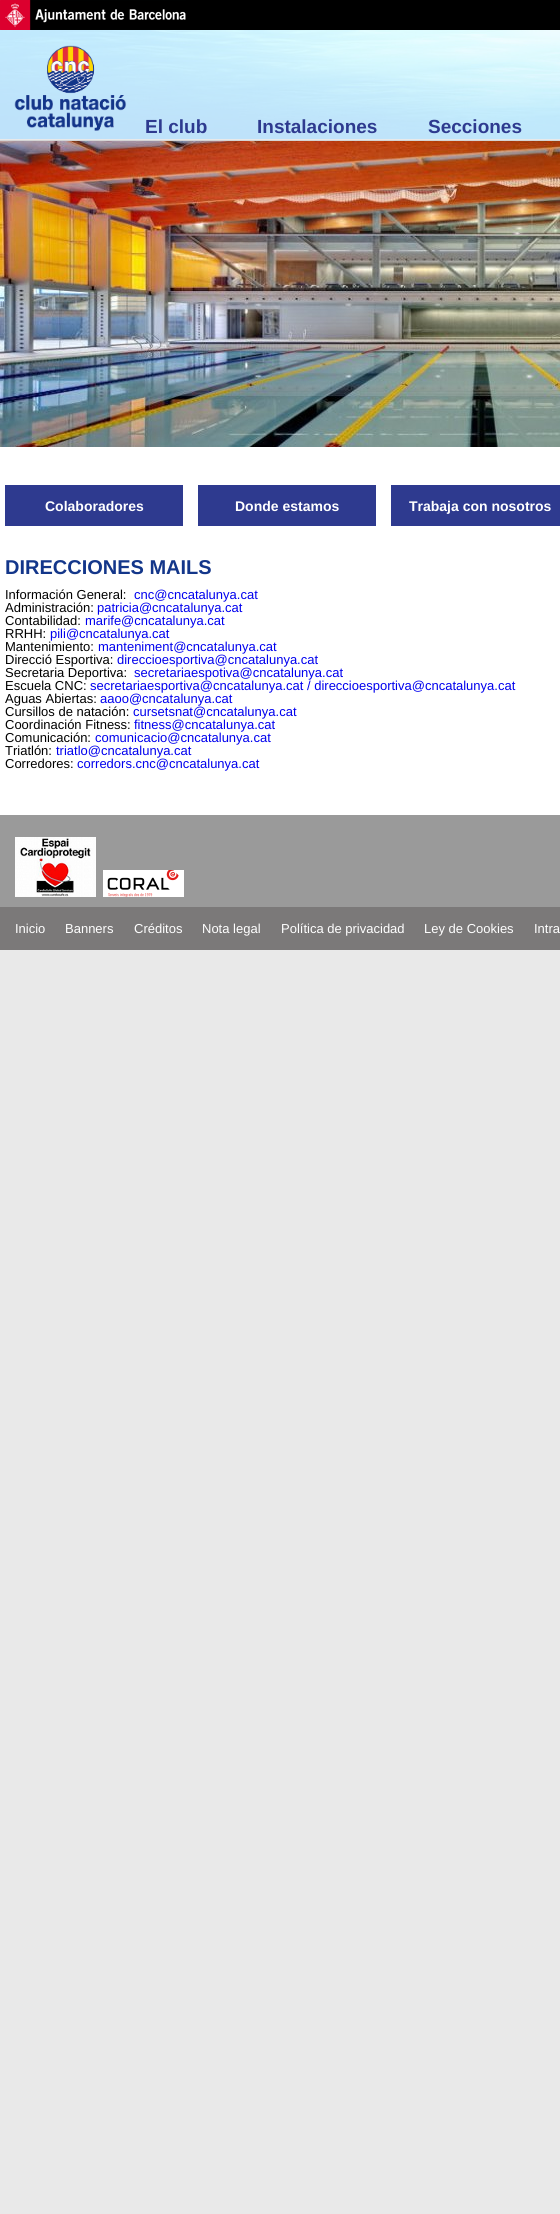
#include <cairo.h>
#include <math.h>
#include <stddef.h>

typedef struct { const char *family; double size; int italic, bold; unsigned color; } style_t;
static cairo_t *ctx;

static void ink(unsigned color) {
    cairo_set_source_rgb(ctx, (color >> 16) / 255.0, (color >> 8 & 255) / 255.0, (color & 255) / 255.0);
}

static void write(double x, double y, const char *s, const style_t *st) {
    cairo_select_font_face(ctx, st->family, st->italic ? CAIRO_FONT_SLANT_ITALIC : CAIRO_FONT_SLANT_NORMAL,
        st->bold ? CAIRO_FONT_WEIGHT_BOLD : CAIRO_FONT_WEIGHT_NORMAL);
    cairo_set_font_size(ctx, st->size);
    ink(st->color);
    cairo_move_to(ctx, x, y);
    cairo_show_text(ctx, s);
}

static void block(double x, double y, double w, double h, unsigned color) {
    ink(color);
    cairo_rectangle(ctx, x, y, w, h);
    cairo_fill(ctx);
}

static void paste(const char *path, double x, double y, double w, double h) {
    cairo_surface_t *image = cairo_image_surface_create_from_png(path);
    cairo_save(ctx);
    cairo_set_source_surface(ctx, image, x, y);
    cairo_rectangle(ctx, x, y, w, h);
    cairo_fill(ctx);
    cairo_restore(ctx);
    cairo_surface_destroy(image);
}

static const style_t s1 = {"Liberation Sans", 19, 0, 1, 0x2e3a8f};
static const style_t s2 = {"Liberation Sans", 14, 0, 1, 0xffffff};
static const style_t s3 = {"Liberation Sans", 20, 0, 1, 0x13368a};
static const style_t s4 = {"Liberation Sans", 13, 0, 0, 0x000000};
static const style_t s5 = {"Liberation Sans", 13, 0, 0, 0x0000ee};
static const style_t s6 = {"Liberation Sans", 13, 0, 0, 0xffffff};

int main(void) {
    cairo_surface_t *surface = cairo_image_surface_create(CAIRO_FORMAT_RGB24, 560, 2214);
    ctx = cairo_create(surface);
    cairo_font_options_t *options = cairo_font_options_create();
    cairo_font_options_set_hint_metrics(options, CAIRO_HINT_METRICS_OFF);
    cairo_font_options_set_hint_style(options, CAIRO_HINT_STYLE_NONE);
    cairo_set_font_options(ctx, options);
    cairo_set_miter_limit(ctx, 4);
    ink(0xe9e9e9);
    cairo_paint(ctx);
    block(186, 0, 374, 30, 0x000000);
    paste("pic1.png", 0, 0, 186, 30);
    block(0, 30, 560, 109, 0xffffff);
    paste("pic2.png", 0, 30, 560, 109);
    paste("pic3.png", 14, 45, 113, 86);
    write(145, 133, "El club", &s1);
    write(257, 133, "Instalaciones", &s1);
    write(428, 133, "Secciones", &s1);
    block(0, 140, 560, 1, 0xd4d4d4);
    paste("pic4.png", 0, 141, 560, 306);
    block(0, 447, 560, 368, 0xffffff);
    block(5, 485, 178, 41, 0x2e3a8f);
    write(45, 511, "Colaboradores", &s2);
    block(198, 485, 178, 41, 0x2e3a8f);
    write(235, 511, "Donde estamos", &s2);
    block(391, 485, 169, 41, 0x2e3a8f);
    write(409, 511, "Trabaja con nosotros", &s2);
    write(5, 574, "DIRECCIONES MAILS", &s3);
    write(5, 599, "Información General:", &s4);
    write(134, 599, "cnc@cncatalunya.cat", &s5);
    write(5, 612, "Administración:", &s4);
    write(97, 612, "patricia@cncatalunya.cat", &s5);
    write(5, 625, "Contabilidad:", &s4);
    write(85, 625, "marife@cncatalunya.cat", &s5);
    write(5, 638, "RRHH:", &s4);
    write(50, 638, "pili@cncatalunya.cat", &s5);
    write(5, 651, "Mantenimiento:", &s4);
    write(98, 651, "manteniment@cncatalunya.cat", &s5);
    write(5, 664, "Direcció Esportiva:", &s4);
    write(117, 664, "direccioesportiva@cncatalunya.cat", &s5);
    write(5, 677, "Secretaria Deportiva:", &s4);
    write(134, 677, "secretariaespotiva@cncatalunya.cat", &s5);
    write(5, 690, "Escuela CNC:", &s4);
    write(90, 690, "secretariaesportiva@cncatalunya.cat / direccioesportiva@cncatalunya.cat", &s5);
    write(5, 703, "Aguas Abiertas:", &s4);
    write(100, 703, "aaoo@cncatalunya.cat", &s5);
    write(5, 716, "Cursillos de natación:", &s4);
    write(133, 716, "cursetsnat@cncatalunya.cat", &s5);
    write(5, 729, "Coordinación Fitness:", &s4);
    write(134, 729, "fitness@cncatalunya.cat", &s5);
    write(5, 742, "Comunicación:", &s4);
    write(95, 742, "comunicacio@cncatalunya.cat", &s5);
    write(5, 755, "Triatlón:", &s4);
    write(56, 755, "triatlo@cncatalunya.cat", &s5);
    write(5, 768, "Corredores:", &s4);
    write(77, 768, "corredors.cnc@cncatalunya.cat", &s5);
    block(0, 815, 560, 92, 0x9a9a9a);
    paste("pic5.png", 15, 837, 81, 60);
    paste("pic6.png", 103, 870, 81, 27);
    block(0, 907, 560, 43, 0x7b7979);
    write(15, 933, "Inicio", &s6);
    write(65, 933, "Banners", &s6);
    write(134, 933, "Créditos", &s6);
    write(202, 933, "Nota legal", &s6);
    write(281, 933, "Política de privacidad", &s6);
    write(424, 933, "Ley de Cookies", &s6);
    write(534, 933, "Intra", &s6);
    cairo_surface_write_to_png(surface, "screenshot.png");
    cairo_font_options_destroy(options);
    cairo_destroy(ctx);
    cairo_surface_destroy(surface);
    return 0;
}
